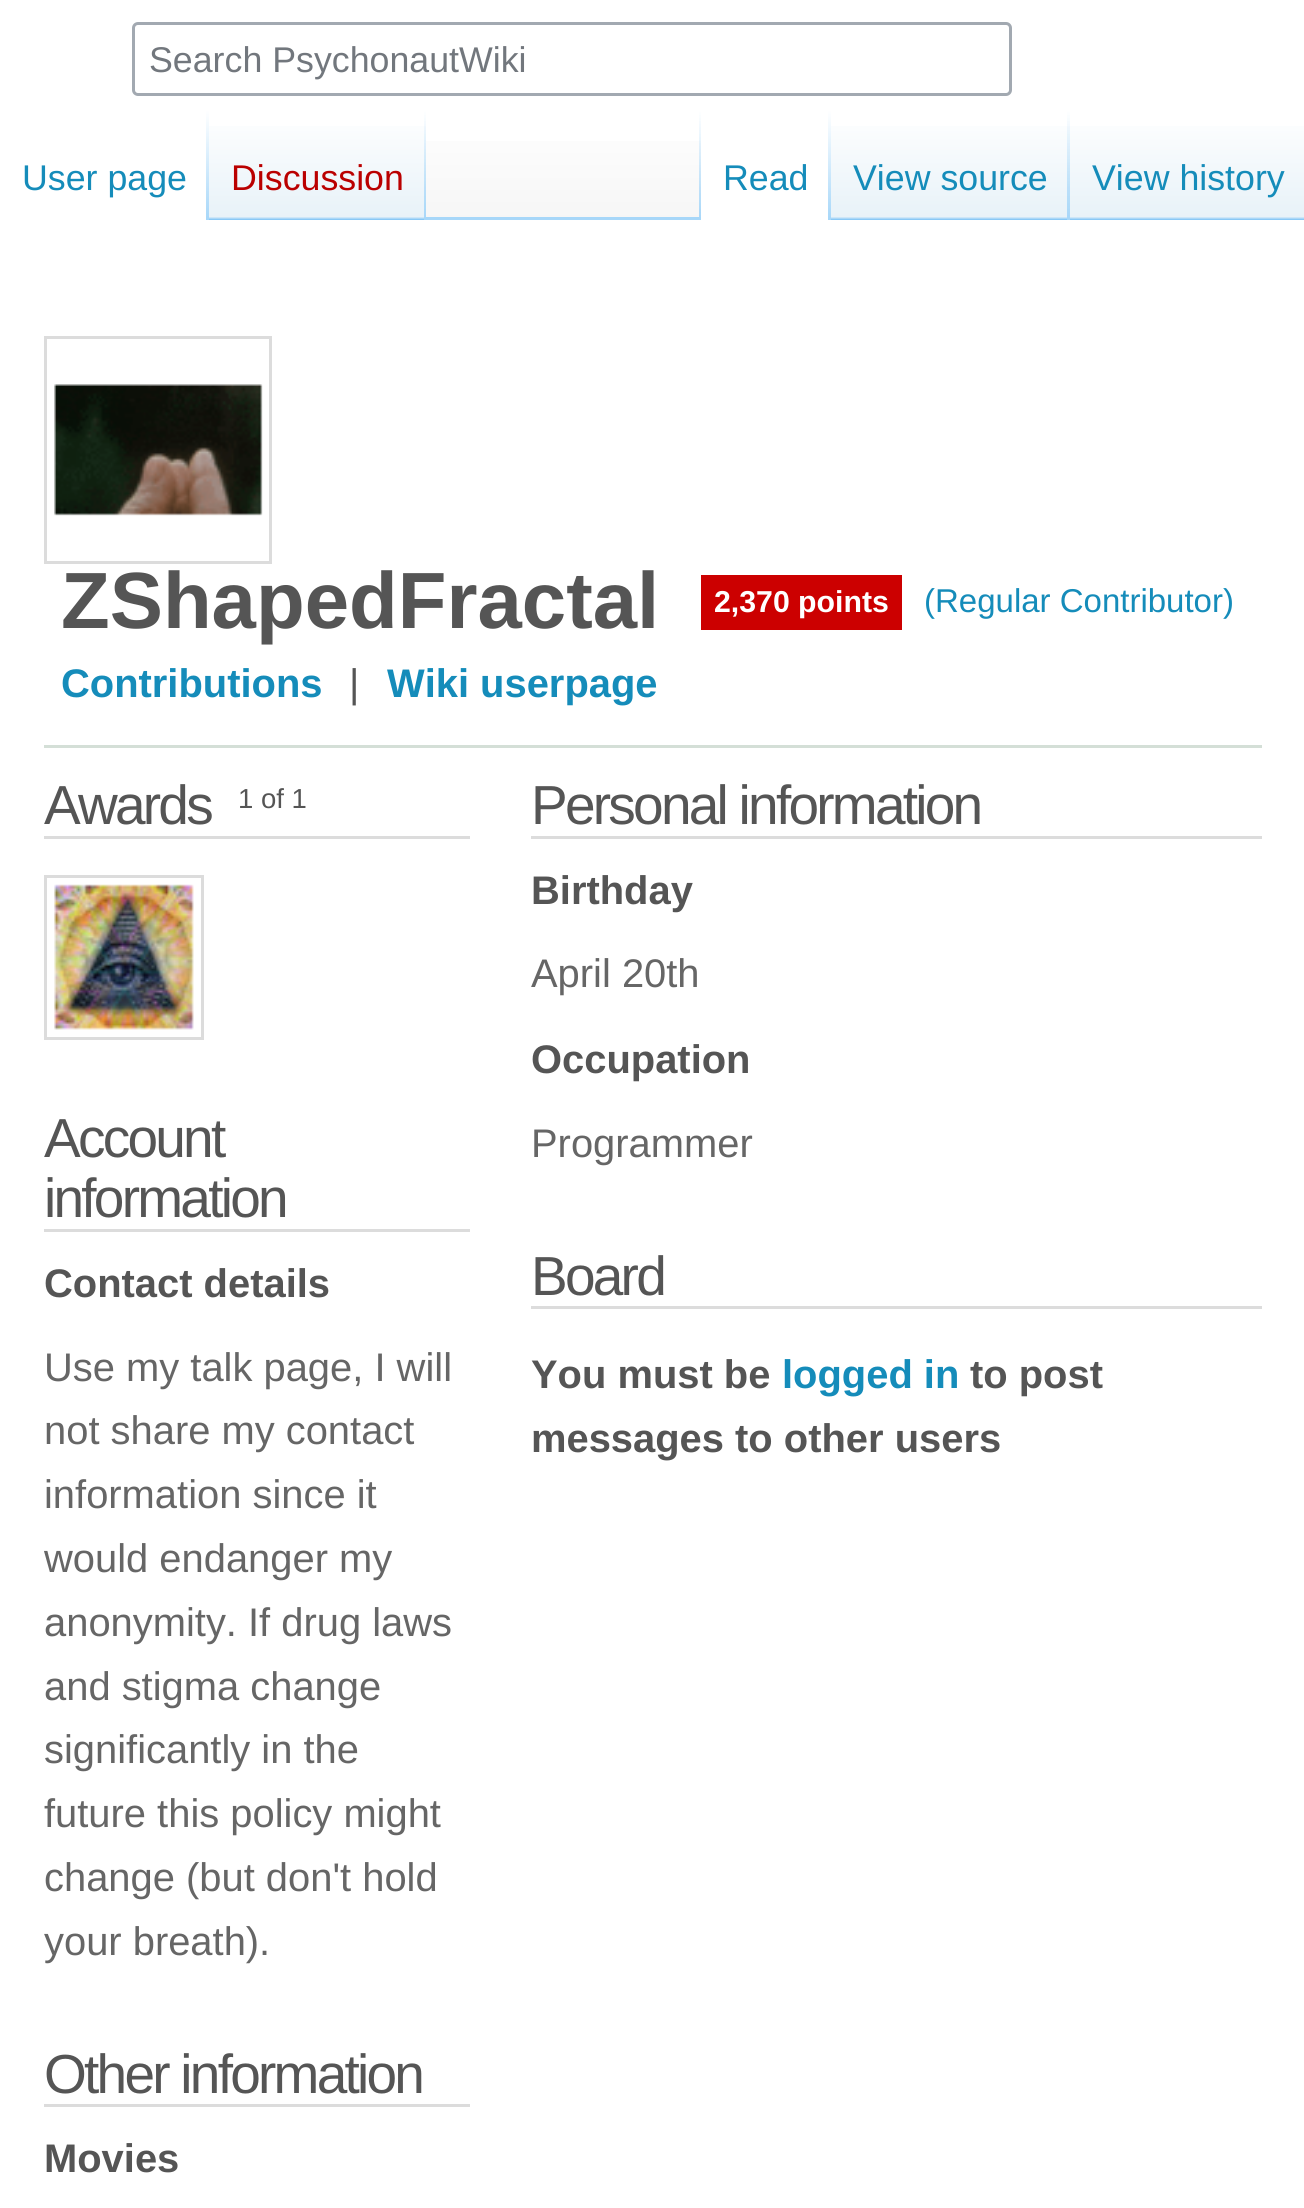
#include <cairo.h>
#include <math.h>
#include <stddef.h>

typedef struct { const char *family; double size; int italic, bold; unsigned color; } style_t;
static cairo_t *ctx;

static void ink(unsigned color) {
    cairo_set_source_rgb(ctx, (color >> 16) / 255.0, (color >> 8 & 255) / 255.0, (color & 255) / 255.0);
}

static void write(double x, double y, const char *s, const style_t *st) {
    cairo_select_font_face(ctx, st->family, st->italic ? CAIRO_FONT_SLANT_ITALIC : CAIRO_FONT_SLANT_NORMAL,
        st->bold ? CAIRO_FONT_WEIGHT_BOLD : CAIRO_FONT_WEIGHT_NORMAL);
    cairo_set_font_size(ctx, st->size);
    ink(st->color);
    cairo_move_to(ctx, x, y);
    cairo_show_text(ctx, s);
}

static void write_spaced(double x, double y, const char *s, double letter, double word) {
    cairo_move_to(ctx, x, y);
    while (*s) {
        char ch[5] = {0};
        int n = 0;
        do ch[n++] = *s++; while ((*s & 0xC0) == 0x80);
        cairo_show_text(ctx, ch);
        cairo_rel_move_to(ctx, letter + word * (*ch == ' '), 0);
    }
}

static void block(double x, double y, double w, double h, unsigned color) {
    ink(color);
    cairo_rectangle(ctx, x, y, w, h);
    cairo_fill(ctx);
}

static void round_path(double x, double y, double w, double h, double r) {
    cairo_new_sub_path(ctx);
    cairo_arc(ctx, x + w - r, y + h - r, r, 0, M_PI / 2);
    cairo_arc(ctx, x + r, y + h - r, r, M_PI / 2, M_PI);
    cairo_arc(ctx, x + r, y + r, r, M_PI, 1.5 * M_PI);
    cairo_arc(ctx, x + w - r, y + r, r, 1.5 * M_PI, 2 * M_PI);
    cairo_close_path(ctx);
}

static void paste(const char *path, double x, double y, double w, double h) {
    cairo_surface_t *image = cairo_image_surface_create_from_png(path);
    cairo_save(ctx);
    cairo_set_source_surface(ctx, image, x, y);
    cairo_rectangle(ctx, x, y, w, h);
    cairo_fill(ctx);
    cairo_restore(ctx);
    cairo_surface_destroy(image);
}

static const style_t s1 = {"Liberation Sans", 35.75, 0, 0, 0x72777d};
static const style_t s2 = {"Liberation Sans", 35.75, 0, 0, 0x158cba};
static const style_t s3 = {"Liberation Sans", 35.75, 0, 0, 0xba0000};
static const style_t s4 = {"Liberation Sans", 79.75, 0, 1, 0x555555};
static const style_t s5 = {"Liberation Sans", 30.25, 0, 1, 0xffffff};
static const style_t s6 = {"Liberation Sans", 33, 0, 0, 0x158cba};
static const style_t s7 = {"Liberation Sans", 39.9, 0, 1, 0x158cba};
static const style_t s8 = {"Liberation Sans", 39.9, 0, 0, 0x555555};
static const style_t s9 = {"Liberation Sans", 27.5, 0, 0, 0x555555};
static const style_t s10 = {"Liberation Sans", 39.9, 0, 1, 0x555555};
static const style_t s11 = {"Liberation Sans", 39.9, 0, 0, 0x666666};

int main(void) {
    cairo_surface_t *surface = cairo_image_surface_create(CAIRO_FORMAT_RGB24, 1304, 2208);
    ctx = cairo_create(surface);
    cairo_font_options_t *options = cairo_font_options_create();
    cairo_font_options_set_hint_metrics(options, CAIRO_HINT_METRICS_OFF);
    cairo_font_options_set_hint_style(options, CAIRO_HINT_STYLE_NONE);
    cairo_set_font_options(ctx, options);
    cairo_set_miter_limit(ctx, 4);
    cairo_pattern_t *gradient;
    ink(0xffffff);
    cairo_paint(ctx);
    round_path(133.5, 23.5, 877, 71, 4.5);
    ink(0xa2a9b1);
    cairo_set_line_width(ctx, 3);
    cairo_stroke(ctx);
    write(149, 72, "Search PsychonautWiki", &s1);
    gradient = cairo_pattern_create_linear(653, 0, 653, 220);
    cairo_pattern_add_color_stop_rgba(gradient, 0.5, 1, 1, 1, 1);
    cairo_pattern_add_color_stop_rgba(gradient, 1, 0.965, 0.965, 0.965, 1);
    cairo_set_source(ctx, gradient);
    cairo_pattern_destroy(gradient);
    cairo_rectangle(ctx, 0, 141, 1304, 76);
    cairo_fill(ctx);
    block(426, 217, 275, 3, 0xa7d7f9);
    gradient = cairo_pattern_create_linear(700, 110, 700, 220);
    cairo_pattern_add_color_stop_rgba(gradient, 0, 0.655, 0.843, 0.976, 0);
    cairo_pattern_add_color_stop_rgba(gradient, 1, 0.655, 0.843, 0.976, 1);
    cairo_set_source(ctx, gradient);
    cairo_pattern_destroy(gradient);
    cairo_rectangle(ctx, 699, 110, 2, 110);
    cairo_fill(ctx);
    block(701, 141, 127, 76, 0xffffff);
    gradient = cairo_pattern_create_linear(829, 110, 829, 220);
    cairo_pattern_add_color_stop_rgba(gradient, 0, 1, 1, 1, 1);
    cairo_pattern_add_color_stop_rgba(gradient, 1, 0.655, 0.843, 0.976, 1);
    cairo_set_source(ctx, gradient);
    cairo_pattern_destroy(gradient);
    cairo_rectangle(ctx, 828, 110, 3, 110);
    cairo_fill(ctx);
    write(723, 190, "Read", &s2);
    gradient = cairo_pattern_create_linear(950, 220, 950, 110);
    cairo_pattern_add_color_stop_rgba(gradient, 0, 0.467, 0.757, 0.965, 1);
    cairo_pattern_add_color_stop_rgba(gradient, 0.03, 0.91, 0.949, 0.973, 1);
    cairo_pattern_add_color_stop_rgba(gradient, 1, 1, 1, 1, 1);
    cairo_set_source(ctx, gradient);
    cairo_pattern_destroy(gradient);
    cairo_rectangle(ctx, 831, 126, 239, 94);
    cairo_fill(ctx);
    gradient = cairo_pattern_create_linear(1068, 110, 1068, 220);
    cairo_pattern_add_color_stop_rgba(gradient, 0, 0.655, 0.843, 0.976, 0);
    cairo_pattern_add_color_stop_rgba(gradient, 1, 0.655, 0.843, 0.976, 1);
    cairo_set_source(ctx, gradient);
    cairo_pattern_destroy(gradient);
    cairo_rectangle(ctx, 1067, 110, 3, 110);
    cairo_fill(ctx);
    write(853, 190, "View source", &s2);
    gradient = cairo_pattern_create_linear(1188, 220, 1188, 110);
    cairo_pattern_add_color_stop_rgba(gradient, 0, 0.467, 0.757, 0.965, 1);
    cairo_pattern_add_color_stop_rgba(gradient, 0.03, 0.91, 0.949, 0.973, 1);
    cairo_pattern_add_color_stop_rgba(gradient, 1, 1, 1, 1, 1);
    cairo_set_source(ctx, gradient);
    cairo_pattern_destroy(gradient);
    cairo_rectangle(ctx, 1070, 126, 234, 94);
    cairo_fill(ctx);
    write(1092, 190, "View history", &s2);
    block(0, 141, 206, 76, 0xffffff);
    gradient = cairo_pattern_create_linear(208, 110, 208, 220);
    cairo_pattern_add_color_stop_rgba(gradient, 0, 1, 1, 1, 1);
    cairo_pattern_add_color_stop_rgba(gradient, 1, 0.655, 0.843, 0.976, 1);
    cairo_set_source(ctx, gradient);
    cairo_pattern_destroy(gradient);
    cairo_rectangle(ctx, 206, 110, 3, 110);
    cairo_fill(ctx);
    write(22, 190, "User page", &s2);
    gradient = cairo_pattern_create_linear(318, 220, 318, 110);
    cairo_pattern_add_color_stop_rgba(gradient, 0, 0.467, 0.757, 0.965, 1);
    cairo_pattern_add_color_stop_rgba(gradient, 0.03, 0.91, 0.949, 0.973, 1);
    cairo_pattern_add_color_stop_rgba(gradient, 1, 1, 1, 1, 1);
    cairo_set_source(ctx, gradient);
    cairo_pattern_destroy(gradient);
    cairo_rectangle(ctx, 209, 126, 217, 94);
    cairo_fill(ctx);
    gradient = cairo_pattern_create_linear(425, 110, 425, 220);
    cairo_pattern_add_color_stop_rgba(gradient, 0, 0.655, 0.843, 0.976, 0);
    cairo_pattern_add_color_stop_rgba(gradient, 1, 0.655, 0.843, 0.976, 1);
    cairo_set_source(ctx, gradient);
    cairo_pattern_destroy(gradient);
    cairo_rectangle(ctx, 424, 110, 2, 110);
    cairo_fill(ctx);
    write(231, 190, "Discussion", &s3);
    block(44, 745, 1218, 3, 0xd4dfd7);
    cairo_rectangle(ctx, 45.5, 337.5, 225, 225);
    ink(0xdcdcdc);
    cairo_stroke(ctx);
    paste("pic1.png", 54, 384, 209, 132);
    write(61, 628, "ZShapedFractal", &s4);
    block(701, 575, 201, 55, 0xcc0000);
    write(714, 612, "2,370 points", &s5);
    write(924, 612, "(Regular Contributor)", &s6);
    write(61, 697, "Contributions", &s7);
    write(349, 697, "|", &s8);
    write(387, 697, "Wiki userpage", &s7);
    block(44, 836, 426, 3, 0xdcdcdc);
    cairo_select_font_face(ctx, "Liberation Sans", CAIRO_FONT_SLANT_NORMAL, CAIRO_FONT_WEIGHT_NORMAL);
    cairo_set_font_size(ctx, 55);
    ink(0x555555);
    write_spaced(44, 824, "Awards", -2.75, 0);
    write(238, 808, "1 of 1", &s9);
    cairo_rectangle(ctx, 45.5, 876.5, 157, 162);
    ink(0xdcdcdc);
    cairo_stroke(ctx);
    paste("pic2.png", 54, 884, 140, 146);
    block(44, 1229, 426, 3, 0xdcdcdc);
    cairo_set_font_size(ctx, 55);
    ink(0x555555);
    write_spaced(44, 1157, "Account", -2.75, 0);
    write_spaced(44, 1217, "information", -2.75, 0);
    write(44, 1297, "Contact details", &s10);
    write(44, 1381, "Use my talk page, I will", &s11);
    write(44, 1444, "not share my contact", &s11);
    write(44, 1508, "information since it", &s11);
    write(44, 1572, "would endanger my", &s11);
    write(44, 1636, "anonymity. If drug laws", &s11);
    write(44, 1700, "and stigma change", &s11);
    write(44, 1763, "significantly in the", &s11);
    write(44, 1827, "future this policy might", &s11);
    write(44, 1891, "change (but don't hold", &s11);
    write(44, 1955, "your breath).", &s11);
    block(44, 2104, 426, 3, 0xdcdcdc);
    cairo_set_font_size(ctx, 55);
    ink(0x555555);
    write_spaced(44, 2093, "Other information", -2.75, 0);
    write(44, 2172, "Movies", &s10);
    block(531, 836, 731, 3, 0xdcdcdc);
    cairo_select_font_face(ctx, "Liberation Sans", CAIRO_FONT_SLANT_NORMAL, CAIRO_FONT_WEIGHT_NORMAL);
    cairo_set_font_size(ctx, 55);
    ink(0x555555);
    write_spaced(531, 824, "Personal information", -2.75, 0);
    write(531, 904, "Birthday", &s10);
    write(531, 987, "April 20th", &s11);
    write(531, 1073, "Occupation", &s10);
    write(531, 1157, "Programmer", &s11);
    block(531, 1306, 731, 3, 0xdcdcdc);
    cairo_set_font_size(ctx, 55);
    ink(0x555555);
    write_spaced(531, 1295, "Board", -2.75, 0);
    write(531, 1388, "You must be", &s10);
    write(782, 1388, "logged in", &s7);
    write(970, 1388, "to post", &s10);
    write(531, 1452, "messages to other users", &s10);
    cairo_surface_write_to_png(surface, "screenshot.png");
    cairo_font_options_destroy(options);
    cairo_destroy(ctx);
    cairo_surface_destroy(surface);
    return 0;
}
